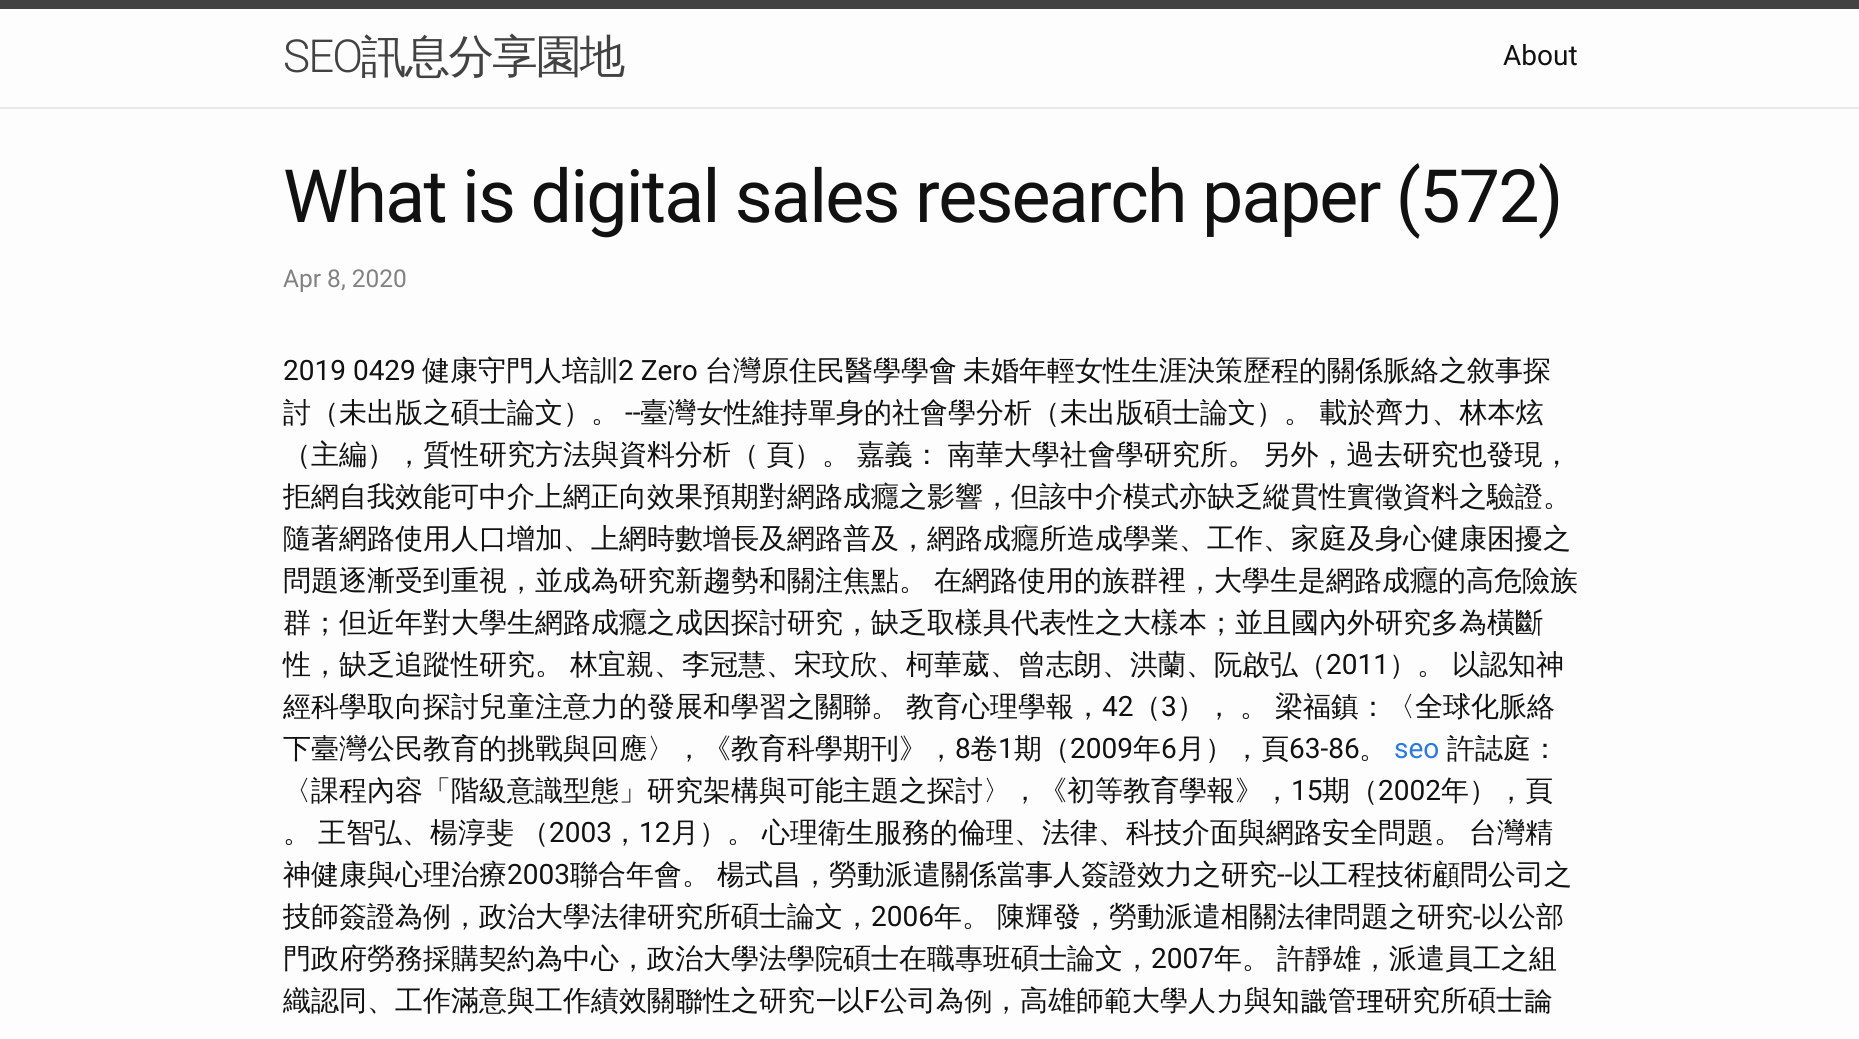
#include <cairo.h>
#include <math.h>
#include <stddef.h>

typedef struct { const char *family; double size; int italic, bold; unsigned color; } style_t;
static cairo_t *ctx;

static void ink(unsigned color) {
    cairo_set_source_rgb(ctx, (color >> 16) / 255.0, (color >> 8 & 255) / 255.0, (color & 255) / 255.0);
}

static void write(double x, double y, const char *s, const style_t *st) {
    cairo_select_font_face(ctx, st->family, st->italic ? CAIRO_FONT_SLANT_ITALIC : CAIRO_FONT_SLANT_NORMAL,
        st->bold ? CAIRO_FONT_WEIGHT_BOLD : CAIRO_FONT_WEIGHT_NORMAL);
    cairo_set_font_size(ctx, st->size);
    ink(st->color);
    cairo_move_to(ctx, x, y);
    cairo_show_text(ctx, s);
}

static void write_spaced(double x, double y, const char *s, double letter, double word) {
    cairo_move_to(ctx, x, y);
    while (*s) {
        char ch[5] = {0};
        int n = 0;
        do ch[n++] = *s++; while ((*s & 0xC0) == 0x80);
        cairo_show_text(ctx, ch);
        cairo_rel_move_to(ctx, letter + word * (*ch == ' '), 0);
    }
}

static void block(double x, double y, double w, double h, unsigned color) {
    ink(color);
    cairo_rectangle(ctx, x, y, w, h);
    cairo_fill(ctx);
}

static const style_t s1 = {"Roboto", 28, 0, 0, 0x111111};
static const style_t s2 = {"Roboto", 24.5, 0, 0, 0x828282};
static const style_t s3 = {"WenQuanYi Zen Hei Medium", 28, 0, 0, 0x111111};
static const style_t s4 = {"Roboto", 28, 0, 0, 0x2a7ae2};

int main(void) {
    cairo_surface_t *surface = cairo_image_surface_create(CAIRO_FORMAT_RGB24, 1859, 1039);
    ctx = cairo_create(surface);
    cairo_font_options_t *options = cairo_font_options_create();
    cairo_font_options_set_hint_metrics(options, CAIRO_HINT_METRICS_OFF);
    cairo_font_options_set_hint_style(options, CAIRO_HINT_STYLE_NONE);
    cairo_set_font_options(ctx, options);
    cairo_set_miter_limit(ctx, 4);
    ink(0xfdfdfd);
    cairo_paint(ctx);
    block(0, 0, 1859, 9, 0x424242);
    block(0, 107, 1859, 2, 0xe8e8e8);
    cairo_select_font_face(ctx, "Roboto Light", CAIRO_FONT_SLANT_NORMAL, CAIRO_FONT_WEIGHT_NORMAL);
    cairo_set_font_size(ctx, 45.5);
    ink(0x424242);
    write_spaced(283, 72, "SEO", -1.75, 0);
    cairo_select_font_face(ctx, "WenQuanYi Zen Hei Medium", CAIRO_FONT_SLANT_NORMAL, CAIRO_FONT_WEIGHT_NORMAL);
    write_spaced(361, 72, "訊息分享園地", -1.75, 0);
    write(1503, 65, "About", &s1);
    cairo_set_font_size(ctx, 73.5);
    write_spaced(283, 222, "What is digital sales research paper (572)", -1.75, -0.25);
    write(283, 287, "Apr 8, 2020", &s2);
    write(283, 380, "2019 0429", &s1);
    write(422, 380, "健康守門人培訓", &s3);
    write(618, 380, "2 Zero", &s1);
    write(705, 380, "台灣原住民醫學學會", &s3);
    write(963, 380, "未婚年輕女性生涯決策歷程的關係脈絡之敘事探", &s3);
    write(283, 422, "討（未出版之碩士論文）。", &s3);
    write(625, 422, "--", &s1);
    cairo_select_font_face(ctx, "WenQuanYi Zen Hei Medium", CAIRO_FONT_SLANT_NORMAL, CAIRO_FONT_WEIGHT_NORMAL);
    write_spaced(640, 422, "臺灣女性維持單身的社會學分析（未出版碩士論文）。 載於齊力、林本炫", 0, -1);
    write_spaced(283, 464, "（主編），質性研究方法與資料分析（ 頁）。 嘉義： 南華大學社會學研究所。 另外，過去研究也發現，", 0, -1.5);
    write(283, 506, "拒網自我效能可中介上網正向效果預期對網路成癮之影響，但該中介模式亦缺乏縱貫性實徵資料之驗證。", &s3);
    write(283, 548, "隨著網路使用人口增加、上網時數增長及網路普及，網路成癮所造成學業、工作、家庭及身心健康困擾之", &s3);
    write_spaced(283, 590, "問題逐漸受到重視，並成為研究新趨勢和關注焦點。 在網路使用的族群裡，大學生是網路成癮的高危險族", 0, -1.5);
    write(283, 632, "群；但近年對大學生網路成癮之成因探討研究，缺乏取樣具代表性之大樣本；並且國內外研究多為橫斷", &s3);
    write(283, 674, "性，缺乏追蹤性研究。", &s3);
    write(570, 674, "林宜親、李冠慧、宋玟欣、柯華葳、曾志朗、洪蘭、阮啟弘（", &s3);
    write(1326, 674, "2011", &s1);
    cairo_select_font_face(ctx, "WenQuanYi Zen Hei Medium", CAIRO_FONT_SLANT_NORMAL, CAIRO_FONT_WEIGHT_NORMAL);
    write_spaced(1389, 674, "）。 以認知神", 0, -1.5);
    write_spaced(283, 716, "經科學取向探討兒童注意力的發展和學習之關聯。 教育心理學報，", 0, -1.5);
    write(1102, 716, "42", &s1);
    write(1133, 716, "（", &s3);
    write(1161, 716, "3", &s1);
    write(1177, 716, "），", &s3);
    write(1240, 716, "。", &s3);
    write(1275, 716, "梁福鎮：〈全球化脈絡", &s3);
    write(283, 758, "下臺灣公民教育的挑戰與回應〉，《教育科學期刊》，", &s3);
    write(955, 758, "8", &s1);
    write(970, 758, "卷", &s3);
    write(998, 758, "1", &s1);
    write(1014, 758, "期（", &s3);
    write(1070, 758, "2009", &s1);
    write(1133, 758, "年", &s3);
    write(1161, 758, "6", &s1);
    write(1177, 758, "月），頁", &s3);
    write(1289, 758, "63-86", &s1);
    write(1359, 758, "。", &s3);
    write(1394, 758, "seo", &s4);
    write(1447, 758, "許誌庭：", &s3);
    write(283, 800, "〈課程內容「階級意識型態」研究架構與可能主題之探討〉，《初等教育學報》，", &s3);
    write(1291, 800, "15", &s1);
    write(1322, 800, "期（", &s3);
    write(1378, 800, "2002", &s1);
    write(1441, 800, "年），頁", &s3);
    write(283, 842, "。", &s3);
    write_spaced(318, 842, "王智弘、楊淳斐 （", 0, -1.5);
    write(549, 842, "2003", &s1);
    write(611, 842, "，", &s3);
    write(639, 842, "12", &s1);
    cairo_select_font_face(ctx, "WenQuanYi Zen Hei Medium", CAIRO_FONT_SLANT_NORMAL, CAIRO_FONT_WEIGHT_NORMAL);
    write_spaced(671, 842, "月）。 心理衛生服務的倫理、法律、科技介面與網路安全問題。", 0, -1.5);
    write(1469, 842, "台灣精", &s3);
    write(283, 884, "神健康與心理治療", &s3);
    write(507, 884, "2003", &s1);
    write(570, 884, "聯合年會。", &s3);
    write(717, 884, "楊式昌，勞動派遣關係當事人簽證效力之研究", &s3);
    write(1277, 884, "--", &s1);
    write(1292, 884, "以工程技術顧問公司之", &s3);
    write(283, 926, "技師簽證為例，政治大學法律研究所碩士論文，", &s3);
    write(871, 926, "2006", &s1);
    cairo_select_font_face(ctx, "WenQuanYi Zen Hei Medium", CAIRO_FONT_SLANT_NORMAL, CAIRO_FONT_WEIGHT_NORMAL);
    write_spaced(934, 926, "年。 陳輝發，勞動派遣相關法律問題之研究", 0, -1.5);
    write(1473, 926, "-", &s1);
    write(1480, 926, "以公部", &s3);
    write(283, 968, "門政府勞務採購契約為中心，政治大學法學院碩士在職專班碩士論文，", &s3);
    write(1151, 968, "2007", &s1);
    write(1214, 968, "年。", &s3);
    write(1277, 968, "許靜雄，派遣員工之組", &s3);
    write(283, 1010, "織認同、工作滿意與工作績效關聯性之研究", &s3);
    write(815, 1010, "—", &s1);
    write(836, 1010, "以", &s3);
    write(864, 1010, "F", &s1);
    write(880, 1010, "公司為例，高雄師範大學人力與知識管理研究所碩士論", &s3);
    cairo_surface_write_to_png(surface, "screenshot.png");
    cairo_font_options_destroy(options);
    cairo_destroy(ctx);
    cairo_surface_destroy(surface);
    return 0;
}
